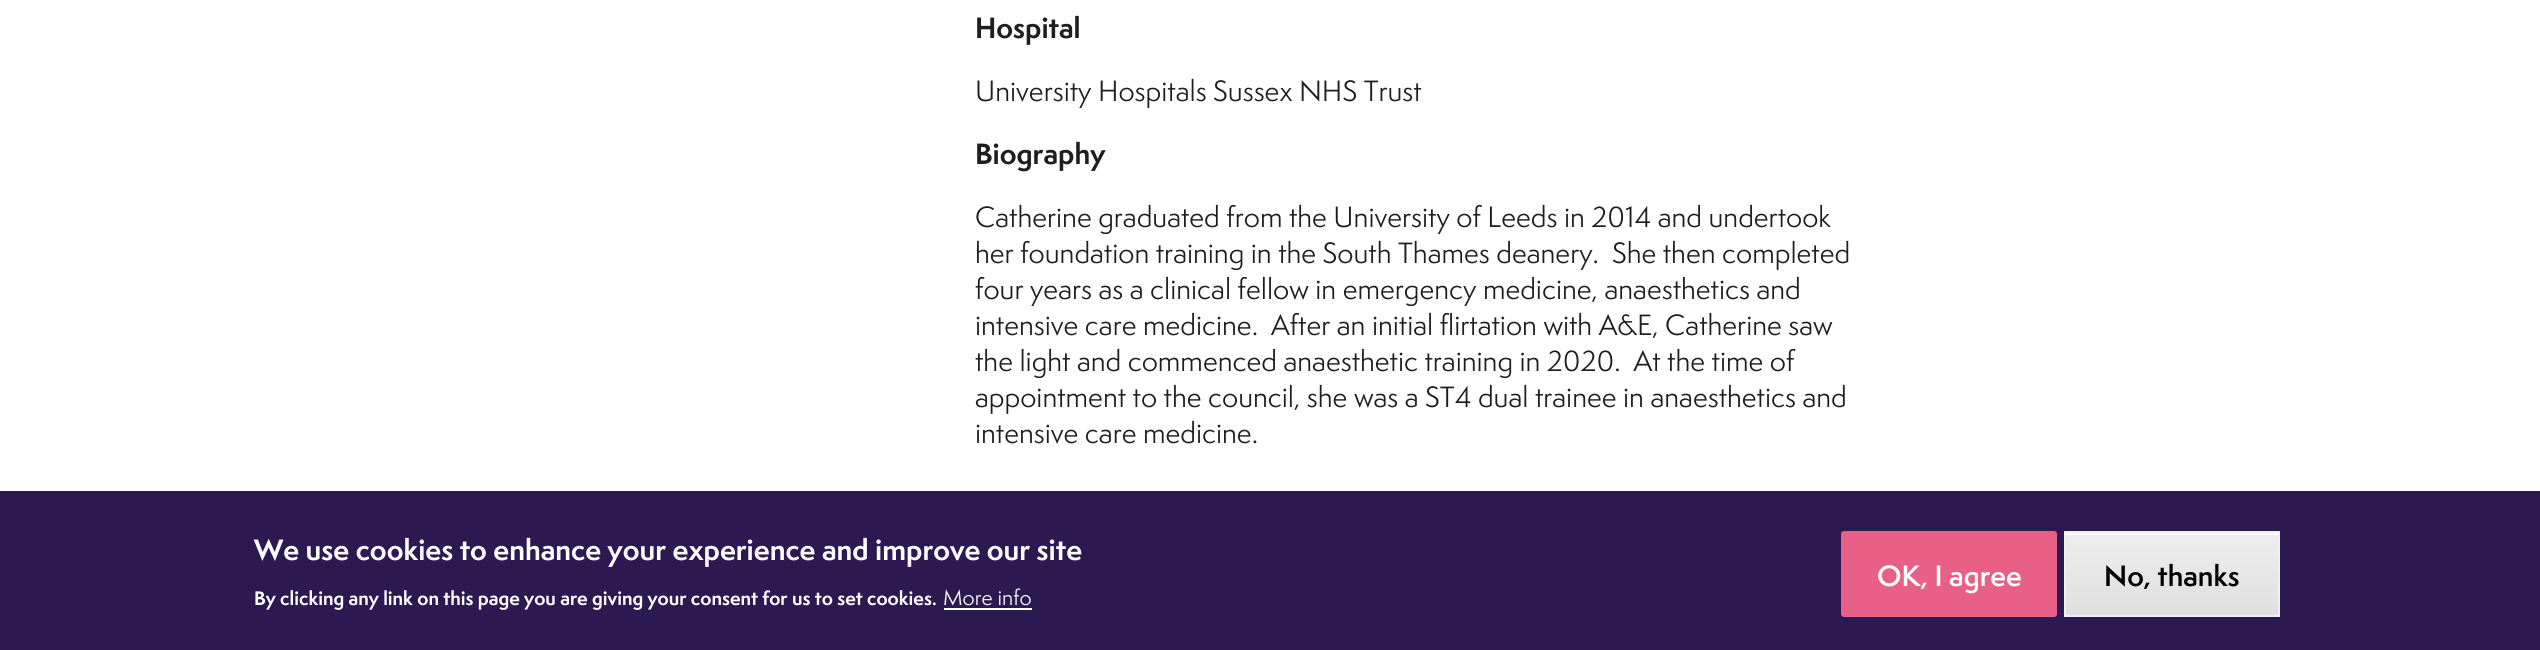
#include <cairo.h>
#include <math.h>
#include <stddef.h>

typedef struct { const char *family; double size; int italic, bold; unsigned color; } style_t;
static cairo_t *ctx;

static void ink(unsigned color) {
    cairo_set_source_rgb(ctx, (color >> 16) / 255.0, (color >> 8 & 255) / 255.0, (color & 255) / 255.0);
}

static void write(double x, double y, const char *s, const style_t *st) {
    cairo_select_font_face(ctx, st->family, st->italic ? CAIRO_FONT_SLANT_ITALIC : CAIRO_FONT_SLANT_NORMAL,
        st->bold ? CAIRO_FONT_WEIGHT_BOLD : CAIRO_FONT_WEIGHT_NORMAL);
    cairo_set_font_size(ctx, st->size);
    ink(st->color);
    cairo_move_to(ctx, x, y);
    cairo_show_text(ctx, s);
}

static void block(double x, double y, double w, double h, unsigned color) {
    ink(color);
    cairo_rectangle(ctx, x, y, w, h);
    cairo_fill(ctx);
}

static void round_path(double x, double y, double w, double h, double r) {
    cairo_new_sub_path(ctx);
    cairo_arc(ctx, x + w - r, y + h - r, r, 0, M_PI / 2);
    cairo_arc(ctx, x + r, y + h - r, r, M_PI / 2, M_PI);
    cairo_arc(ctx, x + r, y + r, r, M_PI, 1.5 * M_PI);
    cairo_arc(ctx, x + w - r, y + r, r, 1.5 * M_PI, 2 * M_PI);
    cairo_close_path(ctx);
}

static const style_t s1 = {"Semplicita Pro", 27, 0, 1, 0x1e1e1f};
static const style_t s2 = {"Semplicita Pro", 27, 0, 0, 0x1e1e1f};
static const style_t s3 = {"Semplicita Pro", 27, 0, 1, 0xffffff};
static const style_t s4 = {"Semplicita Pro", 18, 0, 1, 0xffffff};
static const style_t s5 = {"Semplicita Pro", 20.25, 0, 0, 0xffffff};
static const style_t s6 = {"Semplicita Pro SemiBold", 27, 0, 0, 0xffffff};
static const style_t s7 = {"Semplicita Pro SemiBold", 27, 0, 0, 0x000000};

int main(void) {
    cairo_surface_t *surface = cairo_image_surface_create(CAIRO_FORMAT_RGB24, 2540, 650);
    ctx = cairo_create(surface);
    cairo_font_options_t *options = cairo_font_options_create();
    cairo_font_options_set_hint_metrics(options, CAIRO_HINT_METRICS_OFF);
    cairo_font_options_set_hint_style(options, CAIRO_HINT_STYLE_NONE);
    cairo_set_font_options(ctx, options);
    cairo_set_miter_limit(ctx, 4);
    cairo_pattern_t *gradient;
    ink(0xffffff);
    cairo_paint(ctx);
    write(975, 38, "Hospital", &s1);
    write(975, 101, "University Hospitals Sussex NHS Trust", &s2);
    write(975, 164, "Biography", &s1);
    write(975, 227, "Catherine graduated from the University of Leeds in 2014 and undertook", &s2);
    write(975, 263, "her foundation training in the South Thames deanery.  She then completed", &s2);
    write(975, 299, "four years as a clinical fellow in emergency medicine, anaesthetics and", &s2);
    write(975, 335, "intensive care medicine.  After an initial flirtation with A&E, Catherine saw", &s2);
    write(975, 371, "the light and commenced anaesthetic training in 2020.  At the time of", &s2);
    write(975, 407, "appointment to the council, she was a ST4 dual trainee in anaesthetics and", &s2);
    write(975, 443, "intensive care medicine.", &s2);
    block(0, 491, 2540, 159, 0x2c1951);
    write(254, 560, "We use cookies to enhance your experience and improve our site", &s3);
    write(254, 605, "By clicking any link on this page you are giving your consent for us to set cookies.", &s4);
    write(943, 605, "More info", &s5);
    block(944, 608, 88, 2, 0xffffff);
    ink(0xe96086);
    round_path(1842, 532, 214, 84, 2);
    cairo_fill_preserve(ctx);
    cairo_stroke(ctx);
    write(1877, 586, "OK, I agree", &s6);
    gradient = cairo_pattern_create_linear(2172, 533, 2172, 615);
    cairo_pattern_add_color_stop_rgba(gradient, 0.05, 0.929, 0.929, 0.929, 1);
    cairo_pattern_add_color_stop_rgba(gradient, 1, 0.875, 0.875, 0.875, 1);
    cairo_set_source(ctx, gradient);
    cairo_pattern_destroy(gradient);
    cairo_rectangle(ctx, 2066, 535, 212, 80);
    cairo_fill(ctx);
    block(2066, 533, 213, 2, 0xffffff);
    cairo_rectangle(ctx, 2065, 532, 214, 84);
    ink(0xf1f1f1);
    cairo_stroke(ctx);
    write(2104, 586, "No, thanks", &s7);
    cairo_surface_write_to_png(surface, "screenshot.png");
    cairo_font_options_destroy(options);
    cairo_destroy(ctx);
    cairo_surface_destroy(surface);
    return 0;
}
